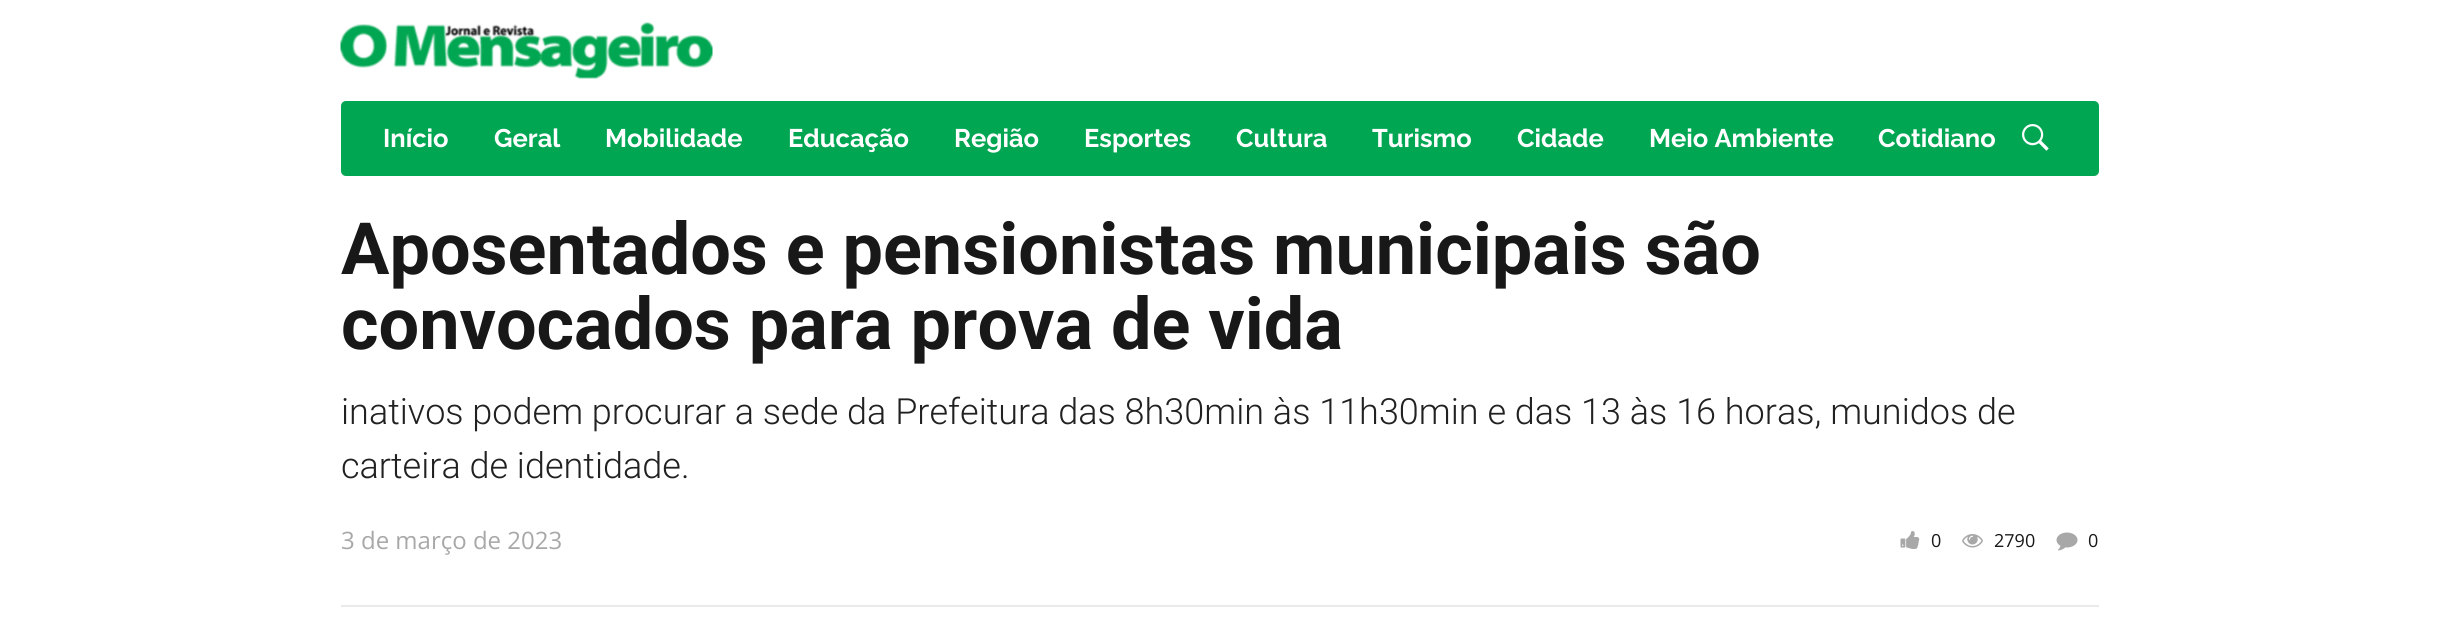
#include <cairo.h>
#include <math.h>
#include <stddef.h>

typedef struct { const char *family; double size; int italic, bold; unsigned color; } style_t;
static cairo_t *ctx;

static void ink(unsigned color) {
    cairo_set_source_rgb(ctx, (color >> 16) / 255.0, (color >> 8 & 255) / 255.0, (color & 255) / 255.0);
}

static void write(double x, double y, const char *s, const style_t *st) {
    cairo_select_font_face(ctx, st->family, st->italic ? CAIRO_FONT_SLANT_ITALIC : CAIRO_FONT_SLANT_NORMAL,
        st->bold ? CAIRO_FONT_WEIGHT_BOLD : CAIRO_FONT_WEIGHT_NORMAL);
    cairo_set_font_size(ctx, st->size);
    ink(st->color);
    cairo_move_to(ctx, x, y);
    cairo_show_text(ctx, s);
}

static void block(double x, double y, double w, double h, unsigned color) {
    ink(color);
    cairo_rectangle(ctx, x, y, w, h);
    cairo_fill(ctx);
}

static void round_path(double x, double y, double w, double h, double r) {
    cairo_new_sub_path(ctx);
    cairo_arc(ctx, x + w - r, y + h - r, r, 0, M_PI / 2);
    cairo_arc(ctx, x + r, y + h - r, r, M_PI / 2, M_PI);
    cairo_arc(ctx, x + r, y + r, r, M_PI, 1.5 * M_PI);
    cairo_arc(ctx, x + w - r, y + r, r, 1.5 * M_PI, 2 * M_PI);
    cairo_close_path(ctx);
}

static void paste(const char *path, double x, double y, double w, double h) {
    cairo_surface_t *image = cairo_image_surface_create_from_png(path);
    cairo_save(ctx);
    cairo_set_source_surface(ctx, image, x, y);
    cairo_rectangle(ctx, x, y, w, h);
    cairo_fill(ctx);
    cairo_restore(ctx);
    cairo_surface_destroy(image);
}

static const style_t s1 = {"Raleway Thin", 25.5, 0, 0, 0xffffff};
static const style_t s2 = {"Roboto", 72, 0, 1, 0x181818};
static const style_t s3 = {"Roboto Light", 36, 0, 0, 0x212121};
static const style_t s4 = {"Open Sans", 24, 0, 0, 0xa8a8a8};
static const style_t s5 = {"Open Sans", 18, 0, 0, 0x181818};

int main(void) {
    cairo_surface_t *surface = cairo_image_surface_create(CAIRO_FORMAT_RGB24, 2438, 638);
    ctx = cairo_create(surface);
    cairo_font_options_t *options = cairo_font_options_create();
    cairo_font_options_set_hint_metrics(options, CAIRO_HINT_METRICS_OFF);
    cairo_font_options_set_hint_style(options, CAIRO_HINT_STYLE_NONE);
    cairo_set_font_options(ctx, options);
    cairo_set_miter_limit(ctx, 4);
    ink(0xffffff);
    cairo_paint(ctx);
    paste("pic1.png", 340, 22, 373, 57);
    ink(0x00a652);
    round_path(341, 101, 1758, 75, 5);
    cairo_fill(ctx);
    write(383, 147, "Início", &s1);
    write(494, 147, "Geral", &s1);
    write(605, 147, "Mobilidade", &s1);
    write(788, 147, "Educação", &s1);
    write(954, 147, "Região", &s1);
    write(1084, 147, "Esportes", &s1);
    write(1236, 147, "Cultura", &s1);
    write(1372, 147, "Turismo", &s1);
    write(1517, 147, "Cidade", &s1);
    write(1649, 147, "Meio Ambiente", &s1);
    write(1878, 147, "Cotidiano", &s1);
    paste("pic2.png", 2022, 124, 27, 27);
    block(341, 605, 1758, 2, 0xeaeaea);
    write(341, 274, "Aposentados e pensionistas municipais são", &s2);
    write(341, 349, "convocados para prova de vida", &s2);
    write(341, 424, "inativos podem procurar a sede da Prefeitura das 8h30min às 11h30min e das 13 às 16 horas, munidos de", &s3);
    write(341, 478, "carteira de identidade.", &s3);
    write(341, 549, "3 de março de 2023", &s4);
    paste("pic3.png", 1900, 531, 20, 18);
    write(1931, 547, "0", &s5);
    paste("pic4.png", 1962, 534, 21, 14);
    write(1994, 547, "2790", &s5);
    paste("pic5.png", 2056, 532, 22, 19);
    write(2088, 547, "0", &s5);
    cairo_surface_write_to_png(surface, "screenshot.png");
    cairo_font_options_destroy(options);
    cairo_destroy(ctx);
    cairo_surface_destroy(surface);
    return 0;
}
